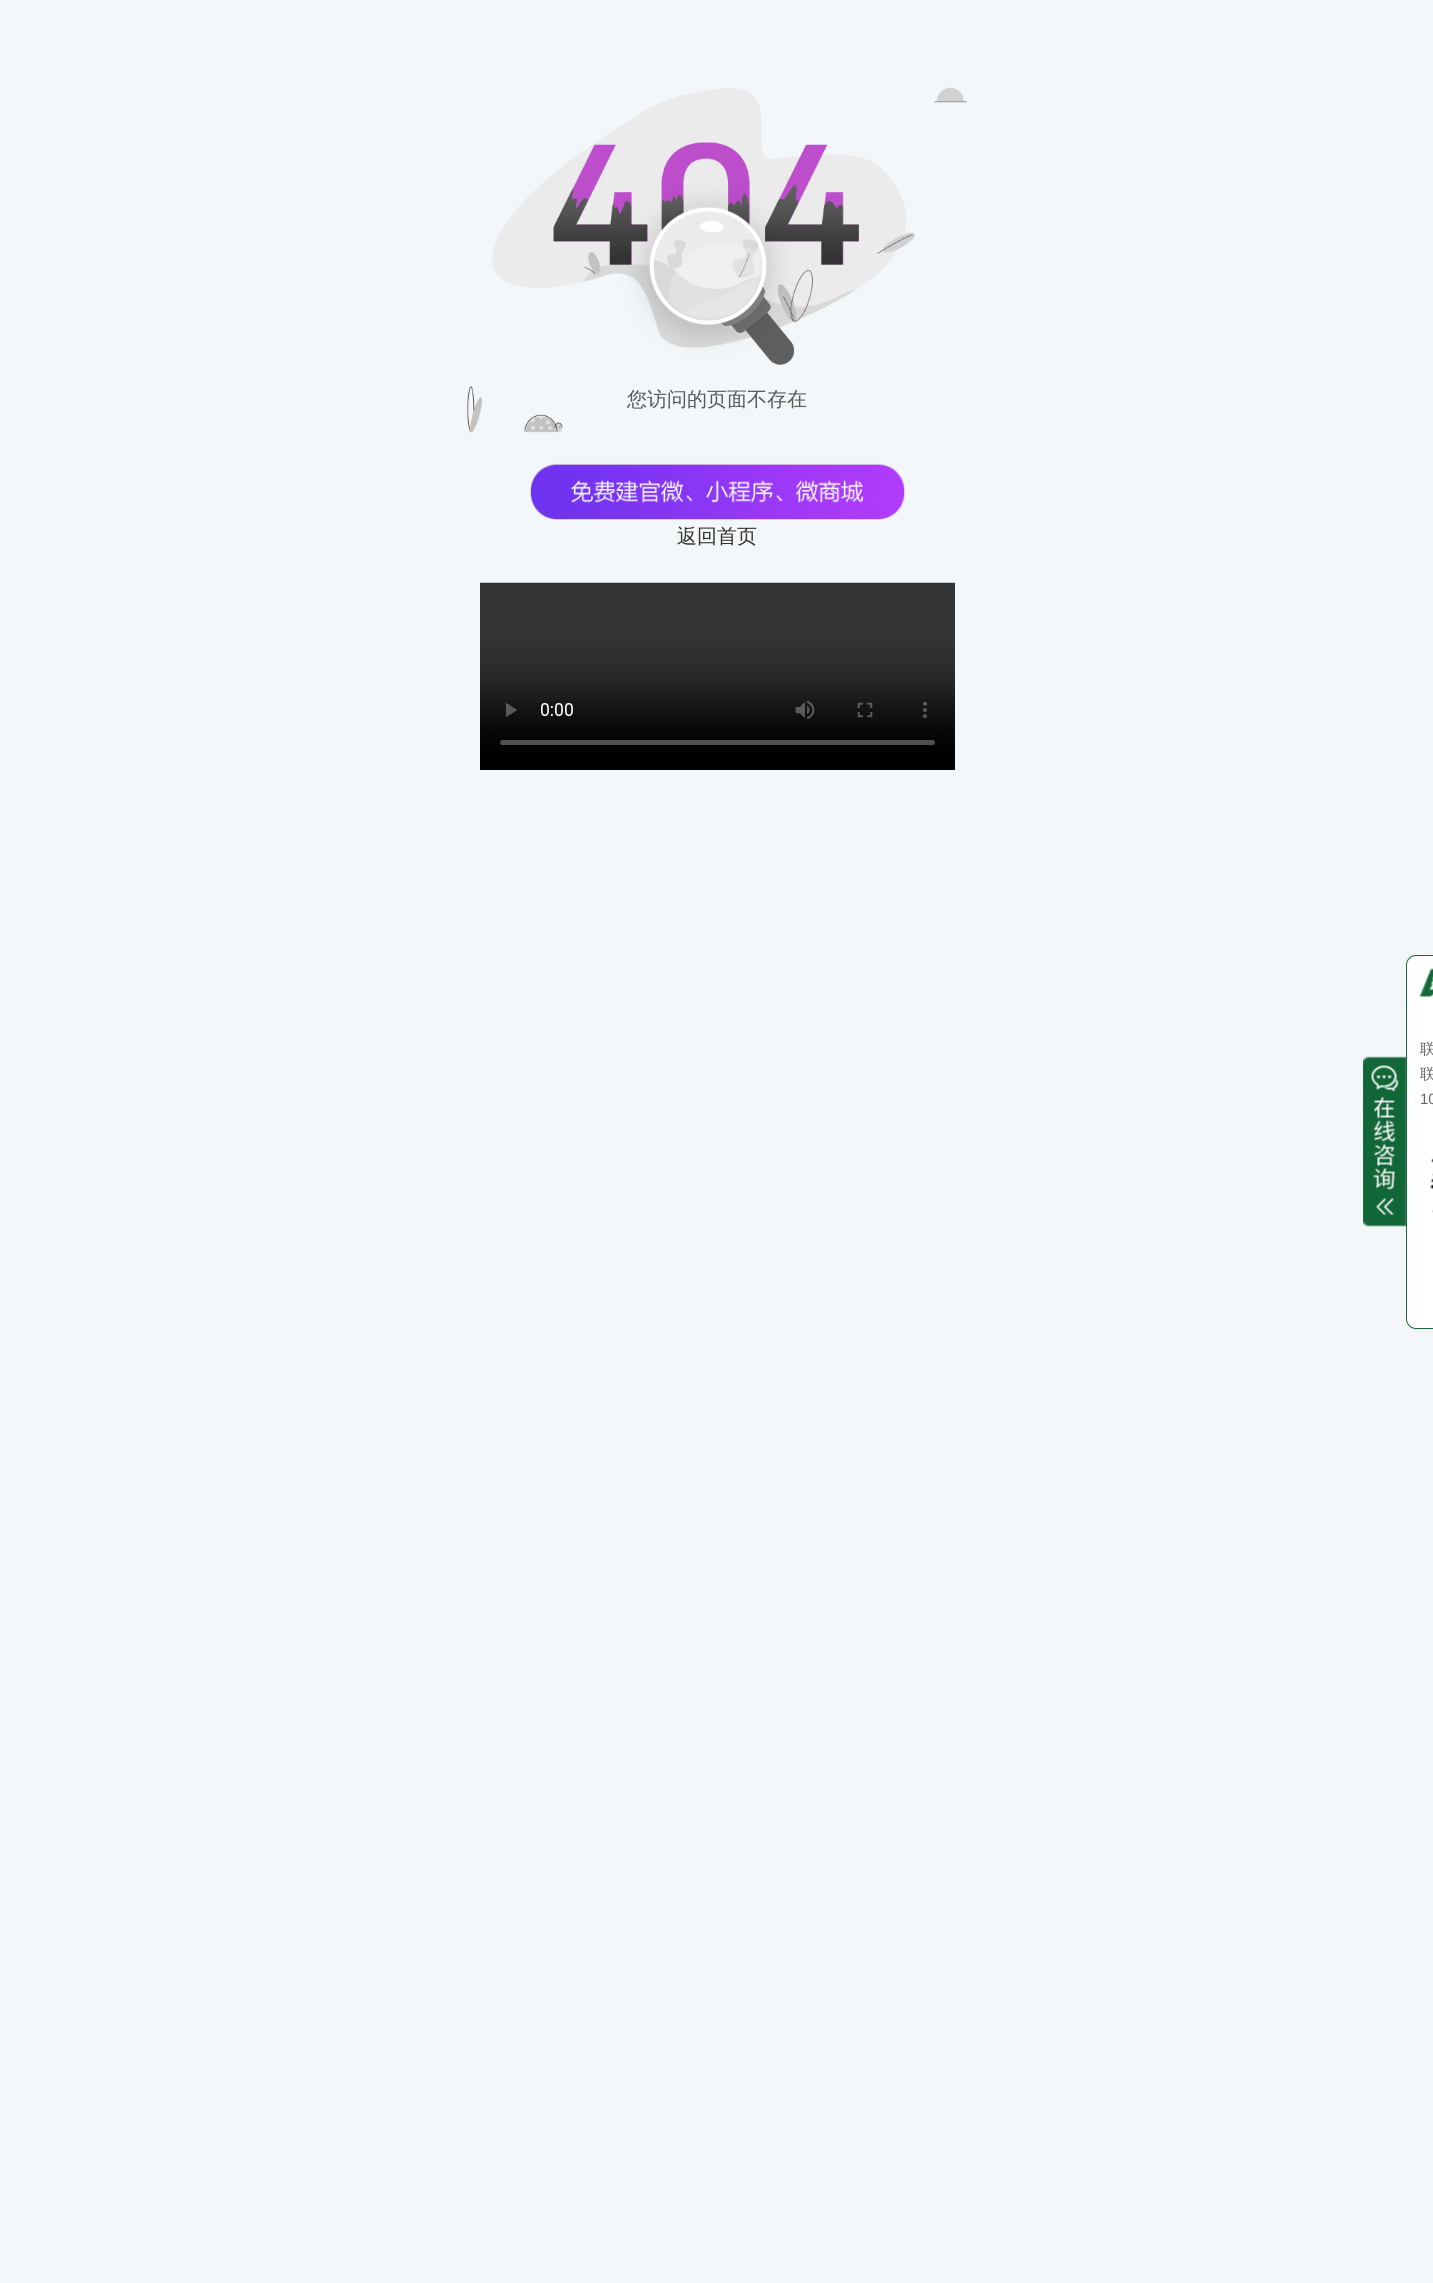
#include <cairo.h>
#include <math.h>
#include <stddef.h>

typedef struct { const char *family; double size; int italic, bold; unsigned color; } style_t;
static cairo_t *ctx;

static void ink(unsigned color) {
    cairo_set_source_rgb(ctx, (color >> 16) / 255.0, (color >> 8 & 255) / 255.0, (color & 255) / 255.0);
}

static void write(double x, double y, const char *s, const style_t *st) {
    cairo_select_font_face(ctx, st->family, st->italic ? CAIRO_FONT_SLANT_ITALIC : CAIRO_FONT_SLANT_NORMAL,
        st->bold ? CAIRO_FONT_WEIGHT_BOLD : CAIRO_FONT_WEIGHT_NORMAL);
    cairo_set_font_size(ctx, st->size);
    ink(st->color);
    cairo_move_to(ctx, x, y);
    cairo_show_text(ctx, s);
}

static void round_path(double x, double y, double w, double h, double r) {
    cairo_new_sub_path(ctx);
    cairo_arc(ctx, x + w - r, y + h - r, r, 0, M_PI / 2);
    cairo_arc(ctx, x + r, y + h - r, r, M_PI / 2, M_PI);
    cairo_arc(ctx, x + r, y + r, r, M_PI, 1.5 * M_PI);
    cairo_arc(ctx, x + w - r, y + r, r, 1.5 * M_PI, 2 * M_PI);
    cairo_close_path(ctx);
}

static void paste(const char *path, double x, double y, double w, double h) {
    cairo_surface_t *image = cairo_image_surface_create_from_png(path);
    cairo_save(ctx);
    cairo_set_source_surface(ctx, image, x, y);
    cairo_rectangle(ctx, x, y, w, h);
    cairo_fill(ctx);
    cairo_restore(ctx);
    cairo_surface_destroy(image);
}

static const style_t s1 = {"WenQuanYi Zen Hei Medium", 20, 0, 0, 0x575757};
static const style_t s2 = {"WenQuanYi Zen Hei Medium", 20, 0, 0, 0x333333};
static const style_t s3 = {"WenQuanYi Zen Hei Medium", 15, 0, 0, 0x666666};
static const style_t s4 = {"Liberation Sans", 15, 0, 0, 0x666666};

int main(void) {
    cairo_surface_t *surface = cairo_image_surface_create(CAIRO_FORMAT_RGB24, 1433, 2283);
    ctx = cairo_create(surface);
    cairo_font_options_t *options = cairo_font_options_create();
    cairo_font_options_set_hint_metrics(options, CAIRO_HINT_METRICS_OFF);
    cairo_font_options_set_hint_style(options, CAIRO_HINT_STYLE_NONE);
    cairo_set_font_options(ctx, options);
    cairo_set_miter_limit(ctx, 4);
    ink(0xf4f7f9);
    cairo_paint(ctx);
    paste("pic1.png", 467, 87, 500, 346);
    write(627, 406, "您访问的页面不存在", &s1);
    paste("pic2.png", 530, 463, 375, 57);
    write(677, 543, "返回首页", &s2);
    paste("pic3.png", 480, 582, 475, 188);
    paste("pic4.png", 1363, 1056, 43, 171);
    ink(0xffffff);
    round_path(1406.5, 955.5, 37, 373, 9.5);
    cairo_fill_preserve(ctx);
    ink(0x126738);
    cairo_set_line_width(ctx, 1);
    cairo_stroke(ctx);
    paste("pic5.png", 1419, 968, 14, 29);
    write(1420, 1054, "联", &s3);
    write(1420, 1079, "联", &s3);
    write(1420, 1104, "10", &s4);
    paste("pic6.png", 1430, 1158, 3, 55);
    cairo_surface_write_to_png(surface, "screenshot.png");
    cairo_font_options_destroy(options);
    cairo_destroy(ctx);
    cairo_surface_destroy(surface);
    return 0;
}
